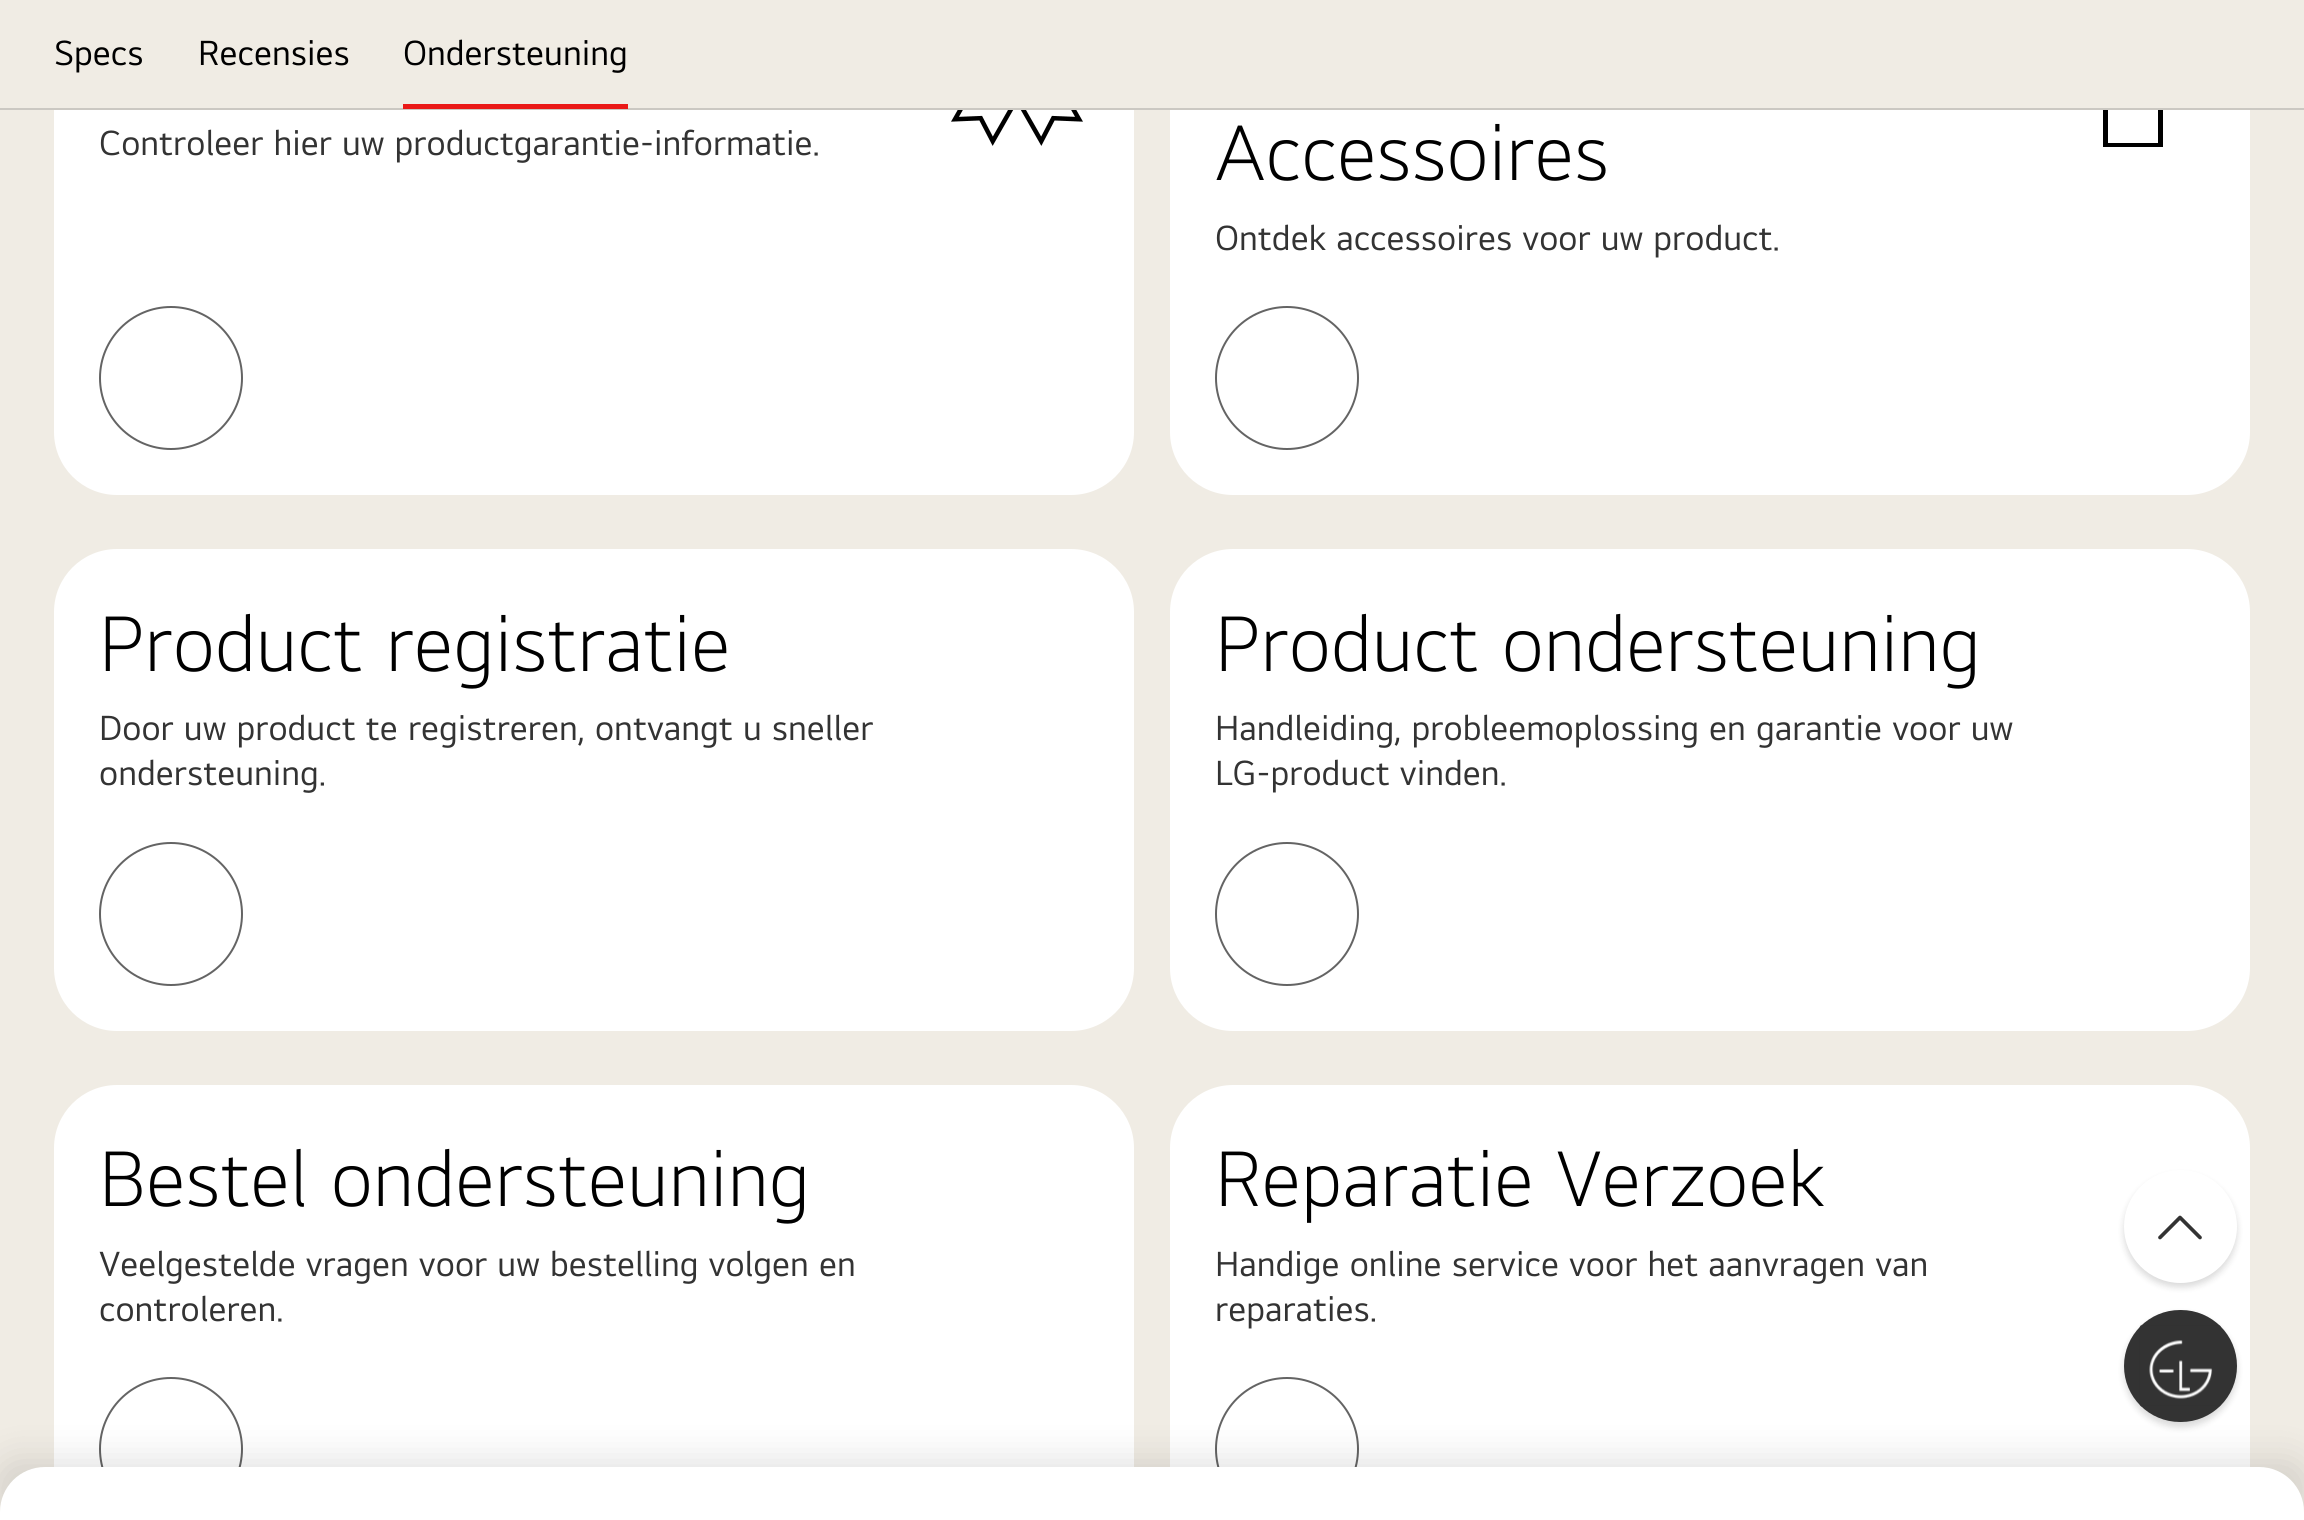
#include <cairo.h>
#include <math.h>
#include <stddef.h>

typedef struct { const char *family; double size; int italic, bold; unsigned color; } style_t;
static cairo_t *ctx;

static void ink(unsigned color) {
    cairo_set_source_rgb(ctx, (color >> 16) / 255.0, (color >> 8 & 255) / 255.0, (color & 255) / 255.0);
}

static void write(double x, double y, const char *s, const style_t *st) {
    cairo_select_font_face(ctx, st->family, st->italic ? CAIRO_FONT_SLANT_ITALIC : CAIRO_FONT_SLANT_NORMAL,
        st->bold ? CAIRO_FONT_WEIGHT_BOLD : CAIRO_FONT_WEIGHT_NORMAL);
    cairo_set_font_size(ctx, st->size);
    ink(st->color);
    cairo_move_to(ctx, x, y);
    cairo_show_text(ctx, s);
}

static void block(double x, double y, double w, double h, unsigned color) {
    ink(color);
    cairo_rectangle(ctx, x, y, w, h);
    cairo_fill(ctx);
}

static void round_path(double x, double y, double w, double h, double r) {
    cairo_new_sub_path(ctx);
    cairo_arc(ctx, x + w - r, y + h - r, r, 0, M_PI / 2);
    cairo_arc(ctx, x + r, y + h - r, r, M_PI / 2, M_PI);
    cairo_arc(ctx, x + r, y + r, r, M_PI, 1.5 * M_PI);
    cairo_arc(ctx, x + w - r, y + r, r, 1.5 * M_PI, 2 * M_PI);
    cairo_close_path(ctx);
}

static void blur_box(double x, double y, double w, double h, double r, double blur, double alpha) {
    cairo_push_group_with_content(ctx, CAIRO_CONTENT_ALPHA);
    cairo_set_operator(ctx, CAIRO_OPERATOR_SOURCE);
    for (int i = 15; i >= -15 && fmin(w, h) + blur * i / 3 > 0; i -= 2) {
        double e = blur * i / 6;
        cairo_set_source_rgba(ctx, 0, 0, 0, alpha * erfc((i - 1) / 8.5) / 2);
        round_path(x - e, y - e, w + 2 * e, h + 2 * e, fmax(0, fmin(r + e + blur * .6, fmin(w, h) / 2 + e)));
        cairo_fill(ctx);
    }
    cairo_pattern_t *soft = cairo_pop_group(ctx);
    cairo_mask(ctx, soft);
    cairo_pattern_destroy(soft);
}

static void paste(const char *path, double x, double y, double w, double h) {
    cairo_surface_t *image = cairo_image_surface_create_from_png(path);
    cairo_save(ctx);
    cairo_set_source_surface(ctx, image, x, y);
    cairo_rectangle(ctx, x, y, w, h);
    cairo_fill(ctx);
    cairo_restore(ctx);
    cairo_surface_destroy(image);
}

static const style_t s1 = {"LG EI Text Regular", 36, 0, 0, 0x000000};
static const style_t s2 = {"LG EI Text Regular", 36, 0, 0, 0x333333};
static const style_t s3 = {"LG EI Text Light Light", 81, 0, 0, 0x000000};

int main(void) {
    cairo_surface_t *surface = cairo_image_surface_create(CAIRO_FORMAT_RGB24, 2304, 1520);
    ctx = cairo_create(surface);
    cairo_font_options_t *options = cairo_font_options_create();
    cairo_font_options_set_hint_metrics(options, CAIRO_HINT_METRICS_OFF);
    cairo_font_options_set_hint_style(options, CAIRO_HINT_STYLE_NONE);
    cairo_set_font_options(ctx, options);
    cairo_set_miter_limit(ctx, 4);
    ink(0xf0ece4);
    cairo_paint(ctx);
    ink(0xffffff);
    round_path(54, -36, 1080, 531, 63);
    cairo_fill(ctx);
    round_path(1170, -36, 1080, 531, 63);
    cairo_fill(ctx);
    ink(0x000000);
    cairo_set_fill_rule(ctx, CAIRO_FILL_RULE_EVEN_ODD);
    cairo_new_path(ctx);
    cairo_move_to(ctx, 2112, 15);
    cairo_line_to(ctx, 2154, 15);
    cairo_line_to(ctx, 2154, 45);
    cairo_line_to(ctx, 2163, 45);
    cairo_line_to(ctx, 2163, 147);
    cairo_line_to(ctx, 2103, 147);
    cairo_line_to(ctx, 2103, 45);
    cairo_line_to(ctx, 2112, 45);
    cairo_close_path(ctx);
    cairo_move_to(ctx, 2150, 20);
    cairo_line_to(ctx, 2150, 45);
    cairo_line_to(ctx, 2116, 45);
    cairo_line_to(ctx, 2116, 20);
    cairo_close_path(ctx);
    cairo_move_to(ctx, 2108, 50);
    cairo_line_to(ctx, 2108, 143);
    cairo_line_to(ctx, 2158, 143);
    cairo_line_to(ctx, 2158, 50);
    cairo_close_path(ctx);
    cairo_move_to(ctx, 2128, 28);
    cairo_line_to(ctx, 2126, 28);
    cairo_line_to(ctx, 2126, 32);
    cairo_line_to(ctx, 2140, 32);
    cairo_line_to(ctx, 2140, 28);
    cairo_close_path(ctx);
    cairo_fill(ctx);
    block(54, 0, 2196, 108, 0xf0ece4);
    block(0, 108, 2304, 2, 0xcbc8c2);
    write(54, 65, "Specs", &s1);
    write(198, 65, "Recensies", &s1);
    write(403, 65, "Ondersteuning", &s1);
    block(403, 104, 225, 5, 0xea1917);
    write(99, 155, "Controleer hier uw productgarantie-informatie.", &s2);
    paste("pic1.png", 951, 110, 132, 36);
    cairo_arc(ctx, 171, 378, 71, 0, 2 * M_PI);
    ink(0x646464);
    cairo_stroke(ctx);
    write(1215, 180, "Accessoires", &s3);
    write(1215, 250, "Ontdek accessoires voor uw product.", &s2);
    cairo_new_path(ctx);
    cairo_arc(ctx, 1287, 378, 71, 0, 2 * M_PI);
    ink(0x646464);
    cairo_stroke(ctx);
    ink(0xffffff);
    round_path(54, 549, 1080, 482, 63);
    cairo_fill(ctx);
    write(99, 671, "Product registratie", &s3);
    write(99, 740, "Door uw product te registreren, ontvangt u sneller", &s2);
    write(99, 785, "ondersteuning.", &s2);
    cairo_new_path(ctx);
    cairo_arc(ctx, 171, 914, 71, 0, 2 * M_PI);
    ink(0x646464);
    cairo_stroke(ctx);
    ink(0xffffff);
    round_path(1170, 549, 1080, 482, 63);
    cairo_fill(ctx);
    write(1215, 671, "Product ondersteuning", &s3);
    write(1215, 740, "Handleiding, probleemoplossing en garantie voor uw", &s2);
    write(1215, 785, "LG-product vinden.", &s2);
    cairo_new_path(ctx);
    cairo_arc(ctx, 1287, 914, 71, 0, 2 * M_PI);
    ink(0x646464);
    cairo_stroke(ctx);
    ink(0xffffff);
    round_path(54, 1085, 1080, 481, 63);
    cairo_fill(ctx);
    write(99, 1206, "Bestel ondersteuning", &s3);
    write(99, 1276, "Veelgestelde vragen voor uw bestelling volgen en", &s2);
    write(99, 1321, "controleren.", &s2);
    cairo_new_path(ctx);
    cairo_arc(ctx, 171, 1449, 71, 0, 2 * M_PI);
    ink(0x646464);
    cairo_stroke(ctx);
    ink(0xffffff);
    round_path(1170, 1085, 1080, 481, 63);
    cairo_fill(ctx);
    write(1215, 1206, "Reparatie Verzoek", &s3);
    write(1215, 1276, "Handige online service voor het aanvragen van", &s2);
    write(1215, 1321, "reparaties.", &s2);
    cairo_new_path(ctx);
    cairo_arc(ctx, 1287, 1449, 71, 0, 2 * M_PI);
    ink(0x646464);
    cairo_stroke(ctx);
    ink(0x000000);
    blur_box(-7, 1456, 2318, 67, 52, 17, 0.1);
    ink(0xffffff);
    cairo_new_path(ctx);
    cairo_move_to(ctx, 45, 1467);
    cairo_line_to(ctx, 2259, 1467);
    cairo_curve_to(ctx, 2284, 1467, 2304, 1487, 2304, 1512);
    cairo_line_to(ctx, 2304, 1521);
    cairo_line_to(ctx, 0, 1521);
    cairo_line_to(ctx, 0, 1512);
    cairo_curve_to(ctx, 0, 1487, 20, 1467, 45, 1467);
    cairo_close_path(ctx);
    cairo_fill(ctx);
    ink(0x000000);
    blur_box(2124, 1175, 113, 112, 56, 3.5, 0.15);
    ink(0xffffff);
    cairo_arc(ctx, 2180.5, 1226.5, 56.5, 0, 2 * M_PI);
    cairo_fill(ctx);
    cairo_new_path(ctx);
    cairo_move_to(ctx, 2160, 1237.5);
    cairo_line_to(ctx, 2180, 1217.5);
    cairo_line_to(ctx, 2200, 1237.5);
    ink(0x333333);
    cairo_set_line_width(ctx, 3.7);
    cairo_set_line_cap(ctx, CAIRO_LINE_CAP_ROUND);
    cairo_set_line_join(ctx, CAIRO_LINE_JOIN_ROUND);
    cairo_stroke(ctx);
    ink(0x000000);
    blur_box(2124, 1314, 113, 113, 56.5, 3.5, 0.15);
    ink(0x333333);
    round_path(2124, 1310, 113, 112, 56);
    cairo_fill(ctx);
    paste("pic2.png", 2139, 1324, 82, 83);
    cairo_surface_write_to_png(surface, "screenshot.png");
    cairo_font_options_destroy(options);
    cairo_destroy(ctx);
    cairo_surface_destroy(surface);
    return 0;
}
